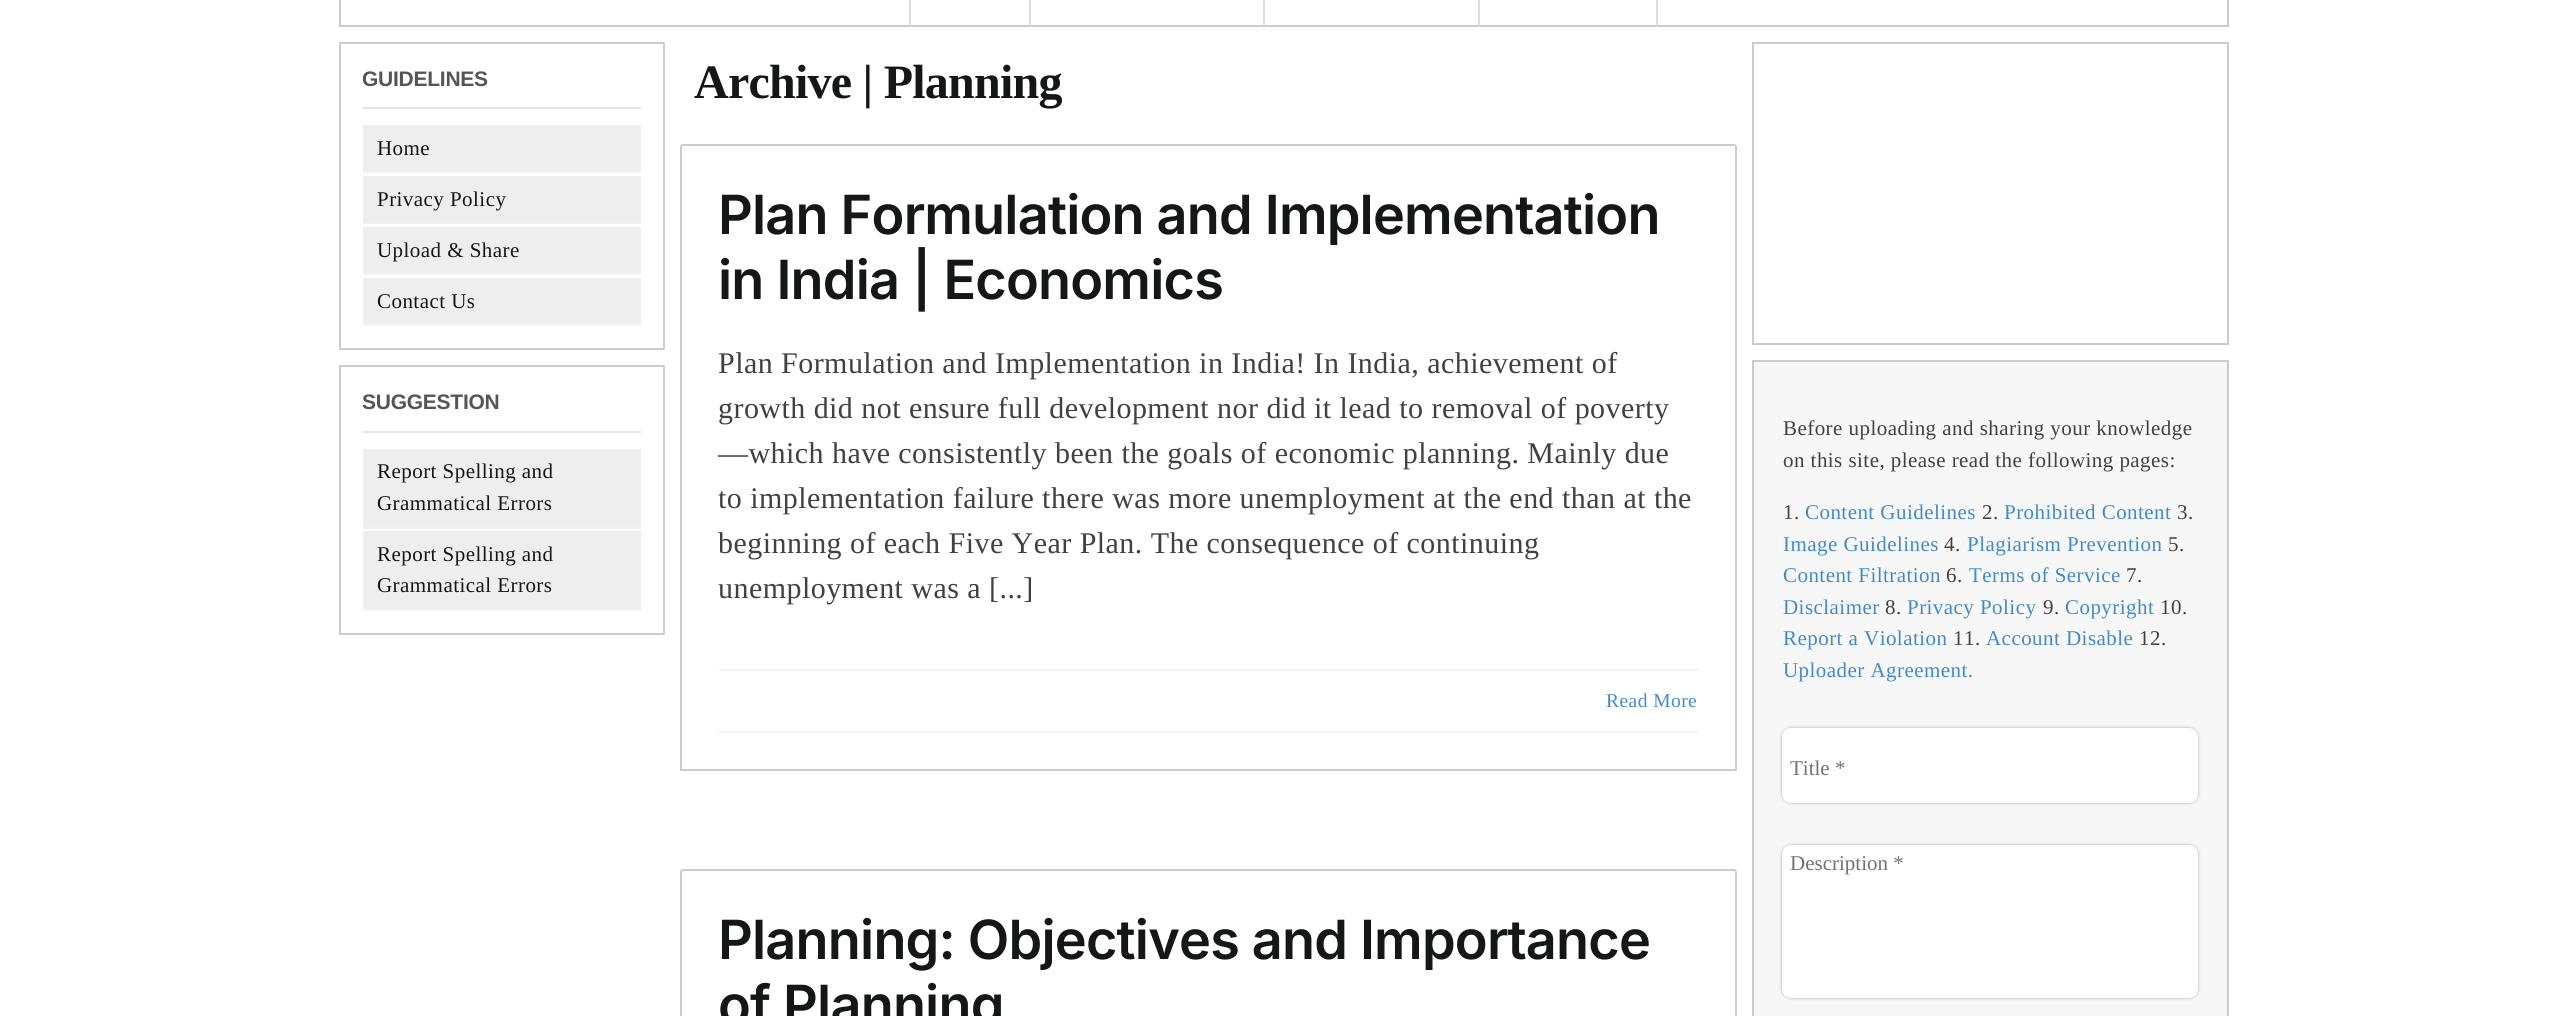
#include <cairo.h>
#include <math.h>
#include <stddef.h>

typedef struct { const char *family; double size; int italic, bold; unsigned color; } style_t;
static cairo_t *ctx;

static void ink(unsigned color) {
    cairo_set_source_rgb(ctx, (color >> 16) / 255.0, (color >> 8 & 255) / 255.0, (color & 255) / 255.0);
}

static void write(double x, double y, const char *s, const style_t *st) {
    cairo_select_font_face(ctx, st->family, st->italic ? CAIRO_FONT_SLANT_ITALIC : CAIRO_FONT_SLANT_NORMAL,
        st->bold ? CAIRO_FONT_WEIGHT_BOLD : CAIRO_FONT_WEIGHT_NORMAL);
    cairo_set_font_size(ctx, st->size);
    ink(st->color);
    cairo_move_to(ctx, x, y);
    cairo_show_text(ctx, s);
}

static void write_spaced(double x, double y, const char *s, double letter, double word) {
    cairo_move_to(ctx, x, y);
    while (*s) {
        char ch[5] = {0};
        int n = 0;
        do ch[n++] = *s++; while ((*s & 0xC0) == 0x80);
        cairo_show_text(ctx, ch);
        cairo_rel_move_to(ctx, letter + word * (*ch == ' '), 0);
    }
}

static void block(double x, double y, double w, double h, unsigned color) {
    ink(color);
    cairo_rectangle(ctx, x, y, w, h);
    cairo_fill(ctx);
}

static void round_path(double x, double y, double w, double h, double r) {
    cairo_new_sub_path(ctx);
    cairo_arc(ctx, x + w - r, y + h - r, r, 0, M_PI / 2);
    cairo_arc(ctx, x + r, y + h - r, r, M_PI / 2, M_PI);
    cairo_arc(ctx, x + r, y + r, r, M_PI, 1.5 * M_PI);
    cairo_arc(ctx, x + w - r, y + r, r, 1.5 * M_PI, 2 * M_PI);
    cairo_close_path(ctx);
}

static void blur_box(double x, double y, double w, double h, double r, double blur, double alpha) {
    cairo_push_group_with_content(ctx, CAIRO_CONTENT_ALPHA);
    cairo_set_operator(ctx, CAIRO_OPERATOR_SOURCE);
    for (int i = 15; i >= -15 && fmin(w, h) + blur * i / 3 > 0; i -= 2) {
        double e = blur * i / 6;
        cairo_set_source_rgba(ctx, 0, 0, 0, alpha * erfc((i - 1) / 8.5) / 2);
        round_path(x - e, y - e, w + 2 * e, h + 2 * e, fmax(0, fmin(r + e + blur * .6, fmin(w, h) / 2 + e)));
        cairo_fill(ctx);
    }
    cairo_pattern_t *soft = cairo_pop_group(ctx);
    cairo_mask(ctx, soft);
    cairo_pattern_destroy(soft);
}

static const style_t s1 = {"Liberation Serif", 21, 0, 0, 0x727272};

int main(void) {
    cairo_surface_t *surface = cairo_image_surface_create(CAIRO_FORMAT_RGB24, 2566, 1016);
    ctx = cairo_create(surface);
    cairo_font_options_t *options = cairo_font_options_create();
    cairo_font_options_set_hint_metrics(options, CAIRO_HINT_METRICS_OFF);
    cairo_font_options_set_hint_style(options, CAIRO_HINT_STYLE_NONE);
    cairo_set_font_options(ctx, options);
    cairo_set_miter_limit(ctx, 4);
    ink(0xffffff);
    cairo_paint(ctx);
    cairo_rectangle(ctx, 340, -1, 1888, 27);
    ink(0xcccccc);
    cairo_stroke(ctx);
    block(1029, 0, 2, 26, 0xdbdbdb);
    block(909, 0, 2, 26, 0xdbdbdb);
    block(1263, 0, 2, 26, 0xdbdbdb);
    block(1478, 0, 2, 26, 0xdbdbdb);
    block(1656, 0, 2, 26, 0xdbdbdb);
    round_path(340, 43, 324, 306, 0.5);
    ink(0xcccccc);
    cairo_stroke(ctx);
    block(363, 107, 278, 2, 0xe6e6e6);
    cairo_select_font_face(ctx, "Liberation Sans", CAIRO_FONT_SLANT_NORMAL, CAIRO_FONT_WEIGHT_BOLD);
    cairo_set_font_size(ctx, 21);
    ink(0x555555);
    write_spaced(362, 86, "GUIDELINES", -0.25, 0);
    block(363, 125, 278, 46, 0xeeeeee);
    block(363, 171, 278, 2, 0xf2f3f5);
    cairo_select_font_face(ctx, "Liberation Serif", CAIRO_FONT_SLANT_NORMAL, CAIRO_FONT_WEIGHT_NORMAL);
    ink(0x141617);
    write_spaced(377, 155, "Home", 0.45, 0);
    block(363, 176, 278, 46, 0xeeeeee);
    block(363, 222, 278, 2, 0xf2f3f5);
    ink(0x141617);
    write_spaced(377, 206, "Privacy Policy", 0.45, 0);
    block(363, 227, 278, 46, 0xeeeeee);
    block(363, 273, 278, 2, 0xf2f3f5);
    ink(0x141617);
    write_spaced(377, 257, "Upload & Share", 0.45, 0);
    block(363, 278, 278, 46, 0xeeeeee);
    block(363, 324, 278, 2, 0xf2f3f5);
    ink(0x141617);
    write_spaced(377, 308, "Contact Us", 0.45, 0);
    round_path(340, 366, 324, 268, 0.5);
    ink(0xcccccc);
    cairo_stroke(ctx);
    block(363, 431, 278, 2, 0xe6e6e6);
    cairo_select_font_face(ctx, "Liberation Sans", CAIRO_FONT_SLANT_NORMAL, CAIRO_FONT_WEIGHT_BOLD);
    ink(0x555555);
    write_spaced(362, 409, "SUGGESTION", -0.25, 0);
    block(363, 449, 278, 78, 0xeeeeee);
    block(363, 527, 278, 2, 0xf2f3f5);
    cairo_select_font_face(ctx, "Liberation Serif", CAIRO_FONT_SLANT_NORMAL, CAIRO_FONT_WEIGHT_NORMAL);
    ink(0x141617);
    write_spaced(377, 478, "Report Spelling and", 0.45, 0);
    write_spaced(377, 510, "Grammatical Errors", 0.45, 0);
    block(363, 531, 278, 78, 0xeeeeee);
    block(363, 609, 278, 2, 0xf2f3f5);
    ink(0x141617);
    write_spaced(377, 561, "Report Spelling and", 0.45, 0);
    write_spaced(377, 592, "Grammatical Errors", 0.45, 0);
    cairo_select_font_face(ctx, "Liberation Serif", CAIRO_FONT_SLANT_NORMAL, CAIRO_FONT_WEIGHT_BOLD);
    cairo_set_font_size(ctx, 48);
    write_spaced(694, 98, "Archive | Planning", -0.75, 0);
    cairo_new_path(ctx);
    cairo_move_to(ctx, 683, 145);
    cairo_line_to(ctx, 1734, 145);
    cairo_curve_to(ctx, 1735, 145, 1736, 146, 1736, 147);
    cairo_line_to(ctx, 1736, 770);
    cairo_line_to(ctx, 681, 770);
    cairo_line_to(ctx, 681, 147);
    cairo_curve_to(ctx, 681, 146, 682, 145, 683, 145);
    cairo_close_path(ctx);
    ink(0xcccccc);
    cairo_stroke(ctx);
    cairo_select_font_face(ctx, "Inter SemiBold", CAIRO_FONT_SLANT_NORMAL, CAIRO_FONT_WEIGHT_NORMAL);
    cairo_set_font_size(ctx, 54);
    ink(0x141617);
    write_spaced(718, 234, "Plan Formulation and Implementation", -0.8, 0);
    write_spaced(718, 299, "in India | Economics", -0.8, 0);
    cairo_select_font_face(ctx, "Liberation Serif", CAIRO_FONT_SLANT_NORMAL, CAIRO_FONT_WEIGHT_NORMAL);
    cairo_set_font_size(ctx, 30);
    ink(0x424142);
    write_spaced(718, 373, "Plan Formulation and Implementation in India! In India, achievement of", 0.45, 0);
    write_spaced(718, 418, "growth did not ensure full development nor did it lead to removal of poverty", 0.45, 0);
    write_spaced(718, 463, "—which have consistently been the goals of economic planning. Mainly due", 0.45, 0);
    write_spaced(718, 508, "to implementation failure there was more unemployment at the end than at the", 0.45, 0);
    write_spaced(718, 553, "beginning of each Five Year Plan. The consequence of continuing", 0.45, 0);
    write_spaced(718, 598, "unemployment was a [...]", 0.45, 0);
    block(719, 669, 979, 2, 0xf2f3f5);
    block(719, 731, 979, 2, 0xf2f3f5);
    cairo_set_font_size(ctx, 19.5);
    ink(0x428bca);
    write_spaced(1606, 707, "Read More", 0.45, 0);
    cairo_new_path(ctx);
    cairo_move_to(ctx, 683, 870);
    cairo_line_to(ctx, 1734, 870);
    cairo_curve_to(ctx, 1735, 870, 1736, 871, 1736, 872);
    cairo_line_to(ctx, 1736, 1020);
    cairo_line_to(ctx, 681, 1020);
    cairo_line_to(ctx, 681, 872);
    cairo_curve_to(ctx, 681, 871, 682, 870, 683, 870);
    cairo_close_path(ctx);
    ink(0xcccccc);
    cairo_stroke(ctx);
    cairo_select_font_face(ctx, "Inter SemiBold", CAIRO_FONT_SLANT_NORMAL, CAIRO_FONT_WEIGHT_NORMAL);
    cairo_set_font_size(ctx, 54);
    ink(0x141617);
    write_spaced(718, 959, "Planning: Objectives and Importance", -0.8, 0);
    write_spaced(718, 1024, "of Planning", -0.8, 0);
    cairo_rectangle(ctx, 1753, 43, 475, 301);
    ink(0xcccccc);
    cairo_stroke(ctx);
    ink(0xf7f7f7);
    cairo_rectangle(ctx, 1753, 361, 475, 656);
    cairo_fill_preserve(ctx);
    ink(0xcccccc);
    cairo_stroke(ctx);
    cairo_select_font_face(ctx, "Liberation Serif", CAIRO_FONT_SLANT_NORMAL, CAIRO_FONT_WEIGHT_NORMAL);
    cairo_set_font_size(ctx, 21);
    ink(0x424142);
    write_spaced(1783, 435, "Before uploading and sharing your knowledge", 0.45, 0);
    write_spaced(1783, 467, "on this site, please read the following pages:", 0.45, 0);
    write_spaced(1783, 519, "1.", 0.45, 0);
    ink(0x428bca);
    write_spaced(1805, 519, "Content Guidelines", 0.45, 0);
    ink(0x424142);
    write_spaced(1982, 519, "2.", 0.45, 0);
    ink(0x428bca);
    write_spaced(2004, 519, "Prohibited Content", 0.45, 0);
    ink(0x424142);
    write_spaced(2177, 519, "3.", 0.45, 0);
    ink(0x428bca);
    write_spaced(1783, 551, "Image Guidelines", 0.45, 0);
    ink(0x424142);
    write_spaced(1944, 551, "4.", 0.45, 0);
    ink(0x428bca);
    write_spaced(1967, 551, "Plagiarism Prevention", 0.45, 0);
    ink(0x424142);
    write_spaced(2168, 551, "5.", 0.45, 0);
    ink(0x428bca);
    write_spaced(1783, 582, "Content Filtration", 0.45, 0);
    ink(0x424142);
    write_spaced(1946, 582, "6.", 0.45, 0);
    ink(0x428bca);
    write_spaced(1969, 582, "Terms of Service", 0.45, 0);
    ink(0x424142);
    write_spaced(2126, 582, "7.", 0.45, 0);
    ink(0x428bca);
    write_spaced(1783, 614, "Disclaimer", 0.45, 0);
    ink(0x424142);
    write_spaced(1885, 614, "8.", 0.45, 0);
    ink(0x428bca);
    write_spaced(1907, 614, "Privacy Policy", 0.45, 0);
    ink(0x424142);
    write_spaced(2043, 614, "9.", 0.45, 0);
    ink(0x428bca);
    write_spaced(2065, 614, "Copyright", 0.45, 0);
    ink(0x424142);
    write_spaced(2160, 614, "10.", 0.45, 0);
    ink(0x428bca);
    write_spaced(1783, 645, "Report a Violation", 0.45, 0);
    ink(0x424142);
    write_spaced(1953, 645, "11.", 0.45, 0);
    ink(0x428bca);
    write_spaced(1986, 645, "Account Disable", 0.45, 0);
    ink(0x424142);
    write_spaced(2139, 645, "12.", 0.45, 0);
    ink(0x428bca);
    write_spaced(1783, 677, "Uploader Agreement.", 0.45, 0);
    ink(0xaaaaaa);
    blur_box(1782, 728, 416, 75, 9, 1.5, 1);
    ink(0xffffff);
    round_path(1782, 728, 416, 75, 9);
    cairo_fill(ctx);
    write(1790, 775, "Title *", &s1);
    ink(0xaaaaaa);
    blur_box(1782, 845, 416, 153, 9, 1.5, 1);
    ink(0xffffff);
    round_path(1782, 845, 416, 153, 9);
    cairo_fill(ctx);
    write(1790, 870, "Description *", &s1);
    cairo_surface_write_to_png(surface, "screenshot.png");
    cairo_font_options_destroy(options);
    cairo_destroy(ctx);
    cairo_surface_destroy(surface);
    return 0;
}
